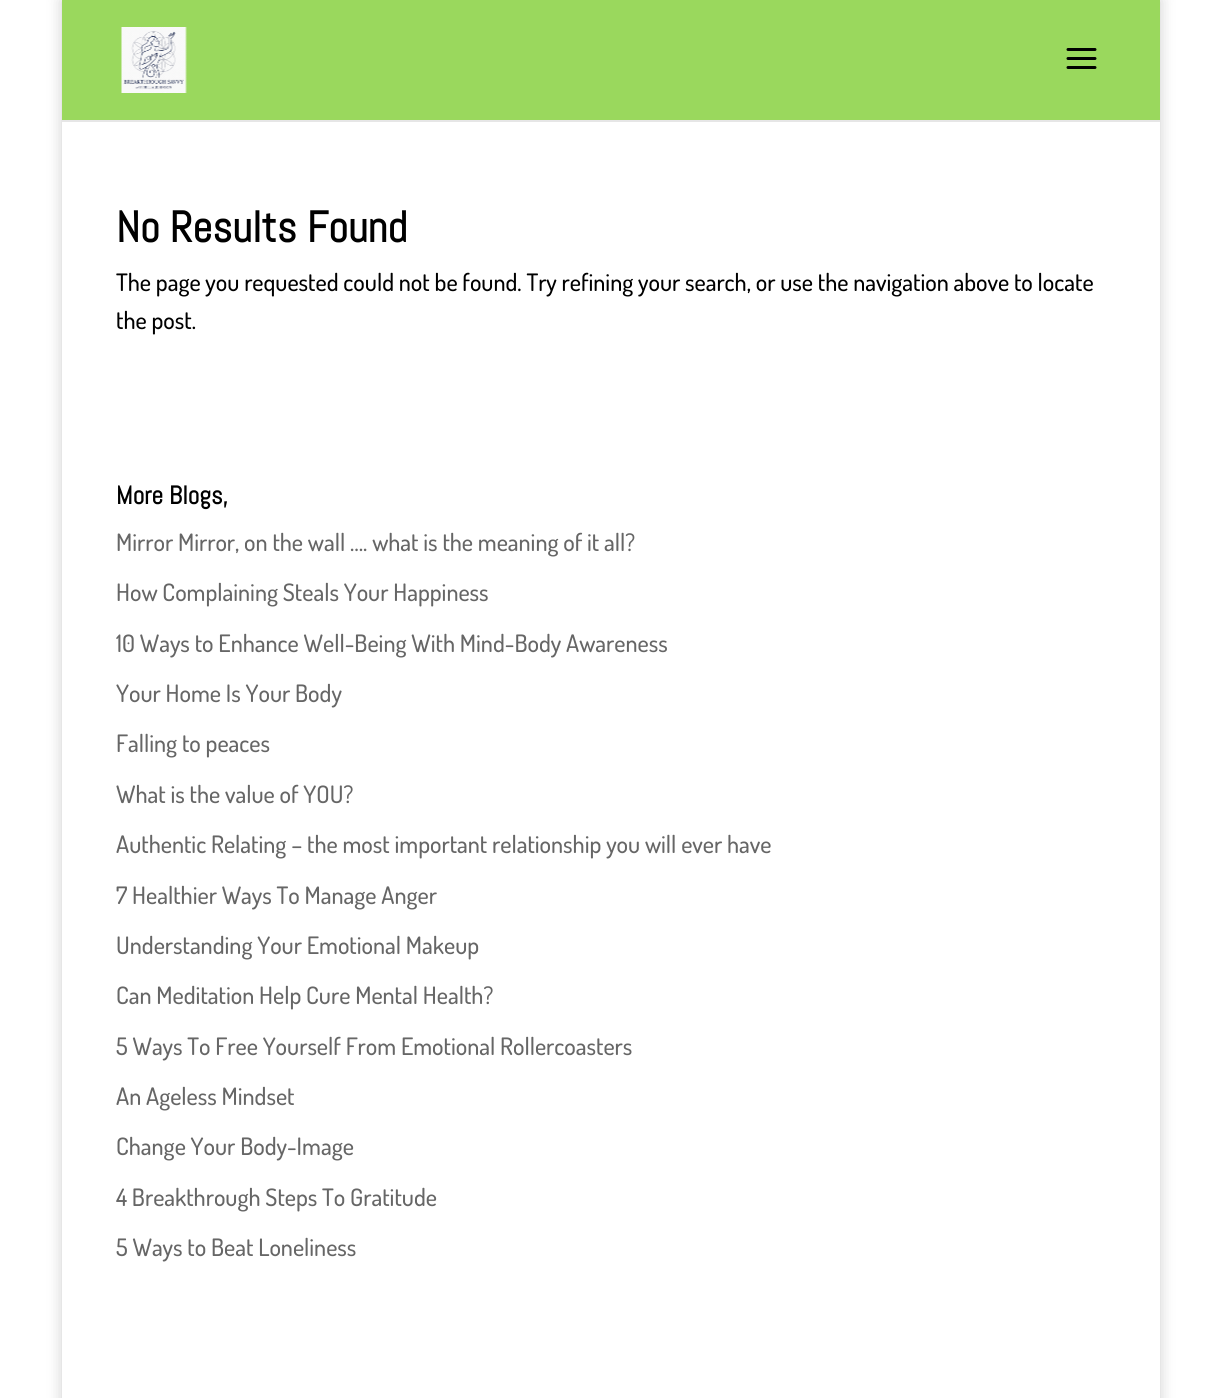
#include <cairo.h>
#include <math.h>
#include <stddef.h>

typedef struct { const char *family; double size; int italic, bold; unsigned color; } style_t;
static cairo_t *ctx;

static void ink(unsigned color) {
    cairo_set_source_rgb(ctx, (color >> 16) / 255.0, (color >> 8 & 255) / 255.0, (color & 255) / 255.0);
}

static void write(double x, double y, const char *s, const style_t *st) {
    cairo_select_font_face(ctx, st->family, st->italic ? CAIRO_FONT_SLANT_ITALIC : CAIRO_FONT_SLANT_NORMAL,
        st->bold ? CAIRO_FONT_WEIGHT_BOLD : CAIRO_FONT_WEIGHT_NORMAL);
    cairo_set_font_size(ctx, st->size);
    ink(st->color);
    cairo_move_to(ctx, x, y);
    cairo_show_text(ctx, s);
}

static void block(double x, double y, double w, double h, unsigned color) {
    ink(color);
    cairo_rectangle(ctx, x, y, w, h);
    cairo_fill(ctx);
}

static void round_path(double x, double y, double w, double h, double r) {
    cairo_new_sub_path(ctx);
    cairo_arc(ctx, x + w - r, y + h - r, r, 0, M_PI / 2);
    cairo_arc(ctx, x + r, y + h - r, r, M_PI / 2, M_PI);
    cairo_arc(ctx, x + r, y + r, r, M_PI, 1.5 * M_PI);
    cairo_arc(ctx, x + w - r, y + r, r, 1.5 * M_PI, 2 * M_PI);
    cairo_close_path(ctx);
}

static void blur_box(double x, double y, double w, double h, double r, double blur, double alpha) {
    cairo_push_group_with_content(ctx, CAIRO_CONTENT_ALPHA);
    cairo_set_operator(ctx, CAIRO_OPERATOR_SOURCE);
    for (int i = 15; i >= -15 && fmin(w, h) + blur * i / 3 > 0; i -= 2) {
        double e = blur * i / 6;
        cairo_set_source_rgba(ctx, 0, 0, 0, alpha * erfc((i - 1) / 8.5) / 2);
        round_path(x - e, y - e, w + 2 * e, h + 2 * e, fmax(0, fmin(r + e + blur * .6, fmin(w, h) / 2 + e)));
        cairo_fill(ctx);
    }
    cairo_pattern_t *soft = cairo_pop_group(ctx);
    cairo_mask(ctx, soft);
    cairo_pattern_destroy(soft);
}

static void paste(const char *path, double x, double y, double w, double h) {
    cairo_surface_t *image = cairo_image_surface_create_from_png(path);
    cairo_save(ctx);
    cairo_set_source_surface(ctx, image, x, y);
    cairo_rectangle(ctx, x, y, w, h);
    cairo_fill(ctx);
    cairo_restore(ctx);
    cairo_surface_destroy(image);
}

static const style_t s1 = {"Abel", 43.5, 0, 1, 0x000000};
static const style_t s2 = {"Dosis Medium", 24, 0, 0, 0x000000};
static const style_t s3 = {"Abel", 25.5, 0, 1, 0x000000};
static const style_t s4 = {"Dosis Medium", 24, 0, 0, 0x666666};

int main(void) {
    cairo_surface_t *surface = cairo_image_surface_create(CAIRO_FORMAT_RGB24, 1221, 1398);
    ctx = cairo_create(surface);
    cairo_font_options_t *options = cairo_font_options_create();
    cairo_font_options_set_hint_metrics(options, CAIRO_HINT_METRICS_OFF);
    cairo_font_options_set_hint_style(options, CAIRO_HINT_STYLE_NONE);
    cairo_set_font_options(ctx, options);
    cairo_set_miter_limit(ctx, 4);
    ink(0xffffff);
    cairo_paint(ctx);
    cairo_save(ctx);
    cairo_set_fill_rule(ctx, CAIRO_FILL_RULE_EVEN_ODD);
    cairo_new_path(ctx);
    cairo_move_to(ctx, 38, 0);
    cairo_line_to(ctx, 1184, 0);
    cairo_line_to(ctx, 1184, 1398);
    cairo_line_to(ctx, 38, 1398);
    cairo_close_path(ctx);
    cairo_move_to(ctx, 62, 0);
    cairo_line_to(ctx, 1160, 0);
    cairo_line_to(ctx, 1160, 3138);
    cairo_line_to(ctx, 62, 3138);
    cairo_close_path(ctx);
    cairo_clip(ctx);
    ink(0x000000);
    blur_box(62, 0, 1098, 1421, 0, 7.5, 0.2);
    cairo_restore(ctx);
    ink(0xe6e6e6);
    cairo_new_path(ctx);
    cairo_move_to(ctx, 62, 120);
    cairo_line_to(ctx, 62, 122);
    cairo_line_to(ctx, 1160, 122);
    cairo_line_to(ctx, 1160, 2);
    cairo_line_to(ctx, 1160, 120);
    cairo_close_path(ctx);
    cairo_fill(ctx);
    block(62, 0, 1098, 120, 0x9ad85d);
    paste("pic1.png", 121, 27, 66, 66);
    paste("pic2.png", 1066, 48, 31, 21);
    block(1159, 122, 1, 1233, 0xffffff);
    write(116, 242, "No Results Found", &s1);
    write(116, 291, "The page you requested could not be found. Try refining your search, or use the navigation above to locate", &s2);
    write(116, 329, "the post.", &s2);
    write(116, 504, "More Blogs,", &s3);
    write(116, 551, "Mirror Mirror, on the wall …. what is the meaning of it all?", &s4);
    write(116, 601, "How Complaining Steals Your Happiness", &s4);
    write(116, 652, "10 Ways to Enhance Well-Being With Mind-Body Awareness", &s4);
    write(116, 702, "Your Home Is Your Body", &s4);
    write(116, 752, "Falling to peaces", &s4);
    write(116, 803, "What is the value of YOU?", &s4);
    write(116, 853, "Authentic Relating – the most important relationship you will ever have", &s4);
    write(116, 904, "7 Healthier Ways To Manage Anger", &s4);
    write(116, 954, "Understanding Your Emotional Makeup", &s4);
    write(116, 1004, "Can Meditation Help Cure Mental Health?", &s4);
    write(116, 1055, "5 Ways To Free Yourself From Emotional Rollercoasters", &s4);
    write(116, 1105, "An Ageless Mindset", &s4);
    write(116, 1155, "Change Your Body-Image", &s4);
    write(116, 1206, "4 Breakthrough Steps To Gratitude", &s4);
    write(116, 1256, "5 Ways to Beat Loneliness", &s4);
    cairo_surface_write_to_png(surface, "screenshot.png");
    cairo_font_options_destroy(options);
    cairo_destroy(ctx);
    cairo_surface_destroy(surface);
    return 0;
}
